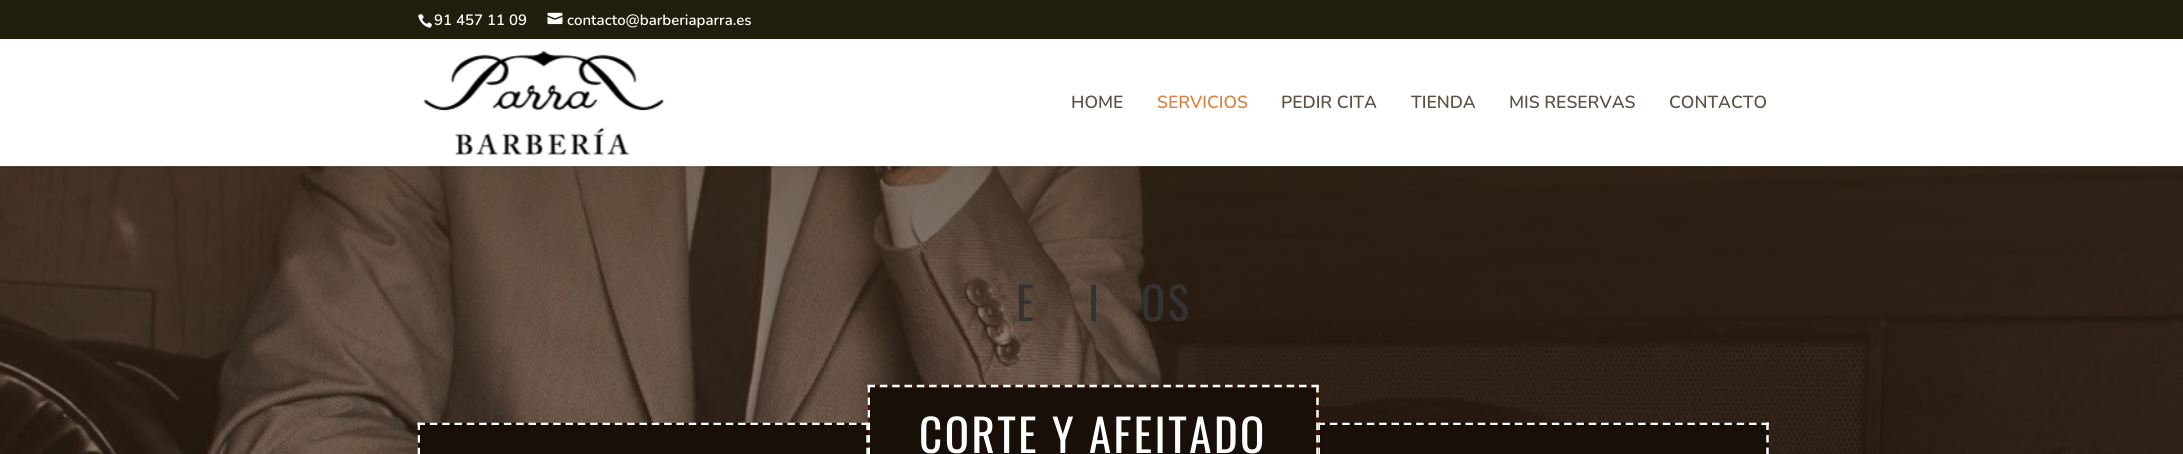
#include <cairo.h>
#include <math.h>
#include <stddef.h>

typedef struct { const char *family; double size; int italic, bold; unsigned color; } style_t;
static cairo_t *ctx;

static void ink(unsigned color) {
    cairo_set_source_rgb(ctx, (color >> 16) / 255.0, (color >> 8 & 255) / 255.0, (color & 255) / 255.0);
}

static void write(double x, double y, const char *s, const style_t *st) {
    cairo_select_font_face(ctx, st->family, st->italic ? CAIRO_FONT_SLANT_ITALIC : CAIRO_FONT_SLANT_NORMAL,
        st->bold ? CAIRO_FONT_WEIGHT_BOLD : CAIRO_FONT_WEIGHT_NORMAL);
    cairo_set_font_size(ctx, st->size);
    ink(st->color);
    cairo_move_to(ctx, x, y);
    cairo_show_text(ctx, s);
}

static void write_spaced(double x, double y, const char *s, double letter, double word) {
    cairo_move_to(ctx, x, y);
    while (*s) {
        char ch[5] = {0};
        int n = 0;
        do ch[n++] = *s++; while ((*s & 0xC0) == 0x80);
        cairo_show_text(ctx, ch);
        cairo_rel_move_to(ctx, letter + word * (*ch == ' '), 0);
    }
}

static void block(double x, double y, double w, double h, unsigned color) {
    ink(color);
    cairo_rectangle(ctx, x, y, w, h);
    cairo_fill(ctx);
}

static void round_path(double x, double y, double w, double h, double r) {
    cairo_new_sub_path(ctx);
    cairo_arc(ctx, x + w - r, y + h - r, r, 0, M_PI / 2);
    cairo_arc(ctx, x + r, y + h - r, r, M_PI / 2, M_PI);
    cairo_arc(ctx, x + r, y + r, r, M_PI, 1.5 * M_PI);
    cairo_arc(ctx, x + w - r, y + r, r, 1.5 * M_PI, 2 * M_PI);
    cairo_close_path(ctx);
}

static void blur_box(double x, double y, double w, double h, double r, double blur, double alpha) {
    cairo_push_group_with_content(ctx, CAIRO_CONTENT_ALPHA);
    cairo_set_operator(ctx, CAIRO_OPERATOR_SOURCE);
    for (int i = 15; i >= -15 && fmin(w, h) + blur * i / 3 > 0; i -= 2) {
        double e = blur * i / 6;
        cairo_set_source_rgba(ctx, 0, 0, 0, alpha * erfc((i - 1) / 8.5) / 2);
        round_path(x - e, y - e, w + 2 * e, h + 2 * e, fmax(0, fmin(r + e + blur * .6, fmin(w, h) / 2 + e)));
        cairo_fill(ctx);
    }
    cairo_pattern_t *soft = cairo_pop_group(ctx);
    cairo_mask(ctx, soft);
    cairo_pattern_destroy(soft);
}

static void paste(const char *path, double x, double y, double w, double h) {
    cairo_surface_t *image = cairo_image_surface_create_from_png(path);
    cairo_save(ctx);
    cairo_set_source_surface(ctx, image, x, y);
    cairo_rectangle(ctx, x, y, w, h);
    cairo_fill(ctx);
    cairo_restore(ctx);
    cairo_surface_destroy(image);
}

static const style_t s1 = {"Nunito ExtraLight", 15, 0, 0, 0xffffff};
static const style_t s2 = {"Nunito ExtraLight", 17.5, 0, 0, 0x5e5245};
static const style_t s3 = {"Nunito ExtraLight", 17.5, 0, 0, 0xdb8343};

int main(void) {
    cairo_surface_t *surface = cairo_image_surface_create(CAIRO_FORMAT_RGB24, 2183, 454);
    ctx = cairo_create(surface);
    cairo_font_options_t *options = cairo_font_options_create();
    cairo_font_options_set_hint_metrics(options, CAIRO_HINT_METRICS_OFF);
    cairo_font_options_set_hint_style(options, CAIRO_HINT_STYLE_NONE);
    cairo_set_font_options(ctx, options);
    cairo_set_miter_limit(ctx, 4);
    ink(0xffffff);
    cairo_paint(ctx);
    block(0, 0, 2183, 39, 0x221e0d);
    paste("pic1.png", 418, 14, 14, 14);
    write(434, 25, "91 457 11 09", &s1);
    paste("pic2.png", 547, 12, 16, 13);
    write(567, 25, "contacto@barberiaparra.es", &s1);
    paste("pic4.png", 0, 166, 2183, 288);
    cairo_set_source_rgba(ctx, 0, 0, 0, 0.1);
    cairo_new_path(ctx);
    cairo_move_to(ctx, 0, 166);
    cairo_line_to(ctx, 0, 168);
    cairo_line_to(ctx, 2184, 168);
    cairo_line_to(ctx, 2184, 40);
    cairo_line_to(ctx, 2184, 166);
    cairo_close_path(ctx);
    cairo_fill(ctx);
    paste("pic3.png", 423, 50, 242, 105);
    write(1071, 108, "HOME", &s2);
    write(1157, 108, "SERVICIOS", &s3);
    write(1281, 108, "PEDIR CITA", &s2);
    write(1411, 108, "TIENDA", &s2);
    write(1509, 108, "MIS RESERVAS", &s2);
    write(1669, 108, "CONTACTO", &s2);
    cairo_select_font_face(ctx, "Oswald", CAIRO_FONT_SLANT_NORMAL, CAIRO_FONT_WEIGHT_NORMAL);
    cairo_set_font_size(ctx, 45);
    ink(0x333333);
    write_spaced(1016, 321, "E", 2.5, 0);
    write_spaced(1088, 321, "I", 2.5, 0);
    write_spaced(1141, 321, "OS", 2.5, 0);
    block(418, 423, 450, 31, 0x190f09);
    cairo_new_path(ctx);
    cairo_move_to(ctx, 417.5, 424);
    cairo_line_to(ctx, 869, 424);
    ink(0xfcfcfc);
    cairo_set_line_width(ctx, 2.5);
    cairo_set_dash(ctx, (double[]){7.5, 4.83}, 2, 0);
    cairo_stroke(ctx);
    cairo_new_path(ctx);
    cairo_move_to(ctx, 867.5, 422.5);
    cairo_line_to(ctx, 867.5, 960);
    cairo_set_dash(ctx, (double[]){7.5, 5.12}, 2, 0);
    cairo_stroke(ctx);
    cairo_new_path(ctx);
    cairo_move_to(ctx, 419, 422.5);
    cairo_line_to(ctx, 419, 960);
    cairo_stroke(ctx);
    block(420, 425, 446, 29, 0x190f09);
    block(1319, 423, 450, 31, 0x190f09);
    cairo_new_path(ctx);
    cairo_move_to(ctx, 1317.5, 424);
    cairo_line_to(ctx, 1769, 424);
    ink(0xfcfcfc);
    cairo_set_dash(ctx, (double[]){7.5, 4.83}, 2, 0);
    cairo_stroke(ctx);
    cairo_new_path(ctx);
    cairo_move_to(ctx, 1319, 422.5);
    cairo_line_to(ctx, 1319, 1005);
    cairo_set_dash(ctx, (double[]){7.5, 5}, 2, 0);
    cairo_stroke(ctx);
    block(1320, 425, 446, 29, 0x190f09);
    ink(0x000000);
    blur_box(868, 385, 451, 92, 0, 7.5, 0.1);
    block(868, 385, 451, 69, 0x3d1600);
    cairo_new_path(ctx);
    cairo_move_to(ctx, 867.5, 386);
    cairo_line_to(ctx, 1319, 386);
    ink(0xfcfcfc);
    cairo_set_dash(ctx, (double[]){7.5, 4.83}, 2, 0);
    cairo_stroke(ctx);
    cairo_new_path(ctx);
    cairo_move_to(ctx, 1317.5, 385);
    cairo_line_to(ctx, 1317.5, 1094);
    cairo_set_dash(ctx, (double[]){7.5, 5.02}, 2, 0);
    cairo_stroke(ctx);
    cairo_new_path(ctx);
    cairo_move_to(ctx, 869, 385);
    cairo_line_to(ctx, 869, 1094);
    cairo_stroke(ctx);
    block(870, 388, 446, 66, 0x190f09);
    ink(0xffffff);
    write_spaced(919, 453, "CORTE Y AFEITADO", 2.5, 0);
    cairo_new_path(ctx);
    cairo_move_to(ctx, 1767.5, 422.5);
    cairo_line_to(ctx, 1767.5, 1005);
    ink(0xfcfcfc);
    cairo_set_dash(ctx, (double[]){7.5, 5}, 2, 0);
    cairo_stroke(ctx);
    cairo_surface_write_to_png(surface, "screenshot.png");
    cairo_font_options_destroy(options);
    cairo_destroy(ctx);
    cairo_surface_destroy(surface);
    return 0;
}
